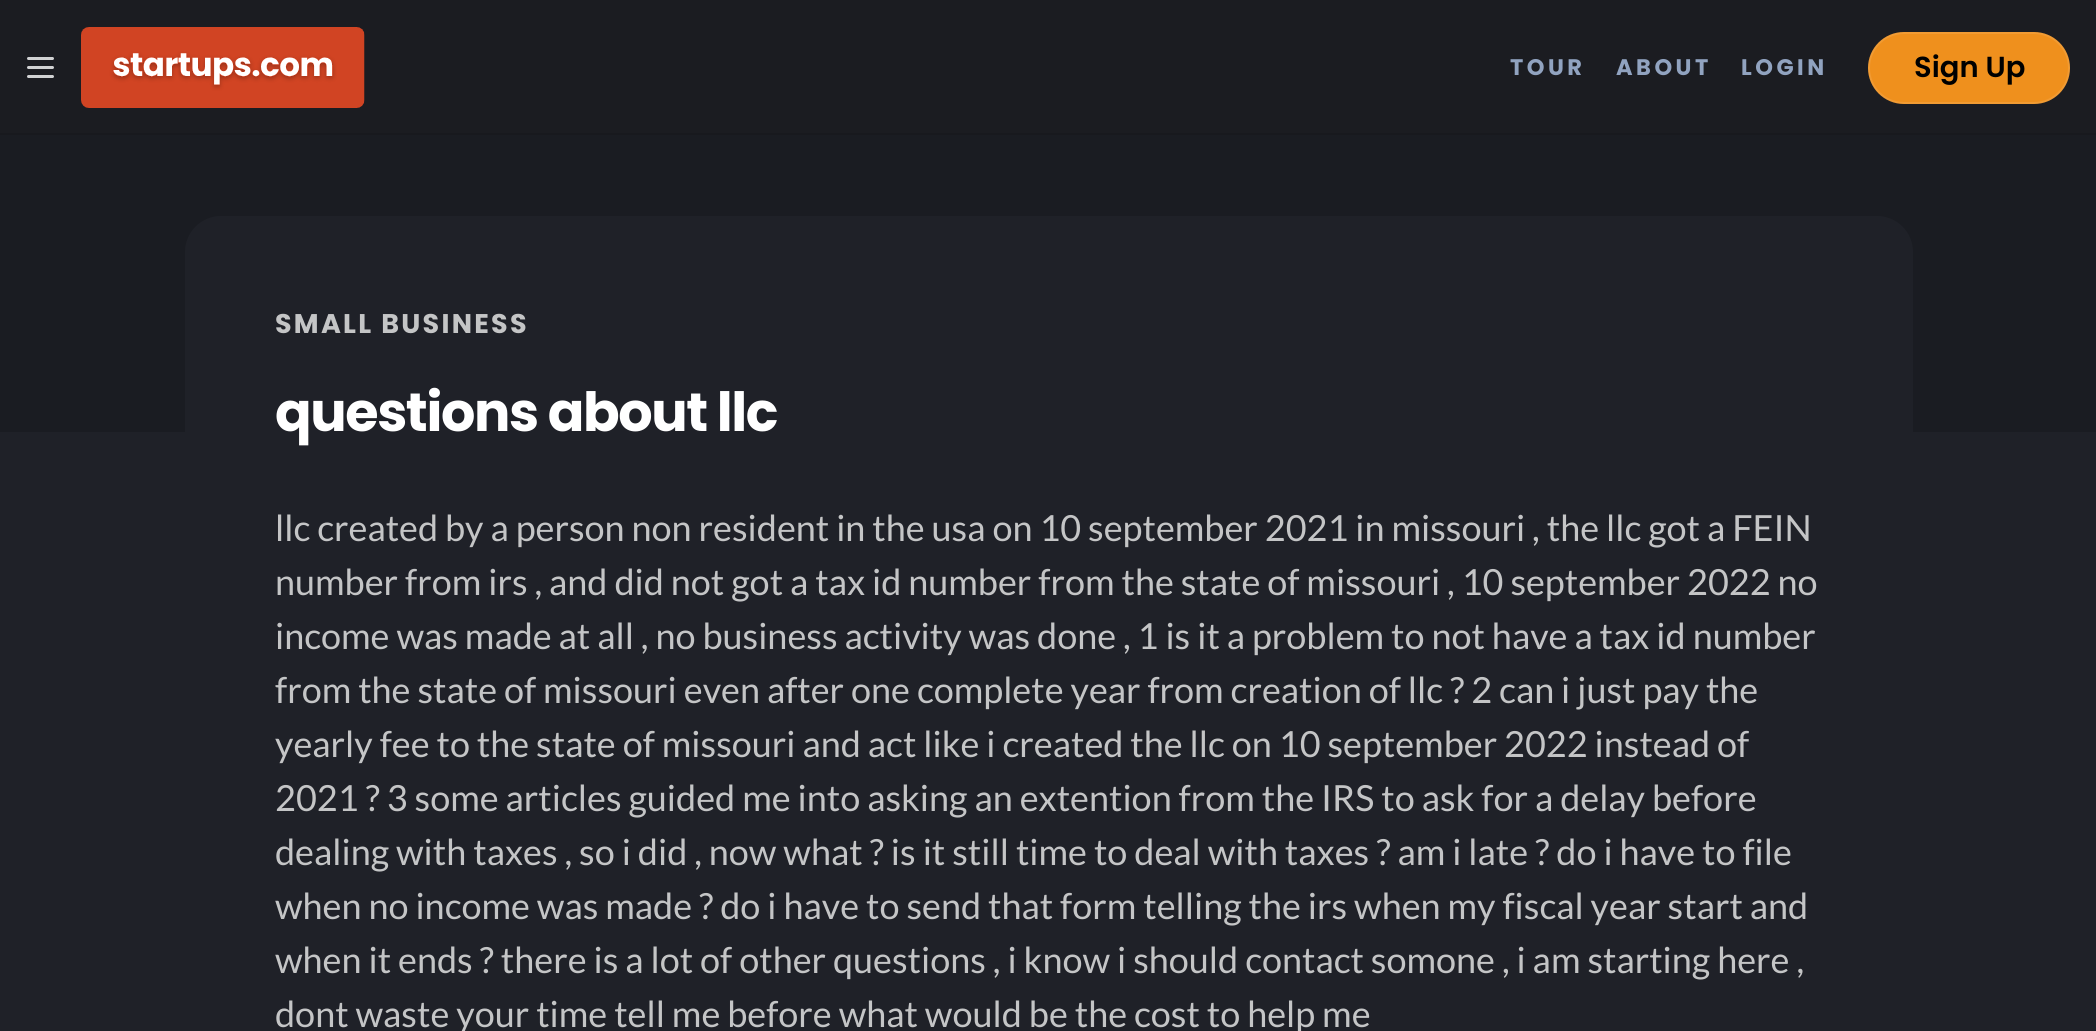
#include <cairo.h>
#include <math.h>
#include <stddef.h>

typedef struct { const char *family; double size; int italic, bold; unsigned color; } style_t;
static cairo_t *ctx;

static void ink(unsigned color) {
    cairo_set_source_rgb(ctx, (color >> 16) / 255.0, (color >> 8 & 255) / 255.0, (color & 255) / 255.0);
}

static void write(double x, double y, const char *s, const style_t *st) {
    cairo_select_font_face(ctx, st->family, st->italic ? CAIRO_FONT_SLANT_ITALIC : CAIRO_FONT_SLANT_NORMAL,
        st->bold ? CAIRO_FONT_WEIGHT_BOLD : CAIRO_FONT_WEIGHT_NORMAL);
    cairo_set_font_size(ctx, st->size);
    ink(st->color);
    cairo_move_to(ctx, x, y);
    cairo_show_text(ctx, s);
}

static void write_spaced(double x, double y, const char *s, double letter, double word) {
    cairo_move_to(ctx, x, y);
    while (*s) {
        char ch[5] = {0};
        int n = 0;
        do ch[n++] = *s++; while ((*s & 0xC0) == 0x80);
        cairo_show_text(ctx, ch);
        cairo_rel_move_to(ctx, letter + word * (*ch == ' '), 0);
    }
}

static void block(double x, double y, double w, double h, unsigned color) {
    ink(color);
    cairo_rectangle(ctx, x, y, w, h);
    cairo_fill(ctx);
}

static void round_path(double x, double y, double w, double h, double r) {
    cairo_new_sub_path(ctx);
    cairo_arc(ctx, x + w - r, y + h - r, r, 0, M_PI / 2);
    cairo_arc(ctx, x + r, y + h - r, r, M_PI / 2, M_PI);
    cairo_arc(ctx, x + r, y + r, r, M_PI, 1.5 * M_PI);
    cairo_arc(ctx, x + w - r, y + r, r, 1.5 * M_PI, 2 * M_PI);
    cairo_close_path(ctx);
}

static void paste(const char *path, double x, double y, double w, double h) {
    cairo_surface_t *image = cairo_image_surface_create_from_png(path);
    cairo_save(ctx);
    cairo_set_source_surface(ctx, image, x, y);
    cairo_rectangle(ctx, x, y, w, h);
    cairo_fill(ctx);
    cairo_restore(ctx);
    cairo_surface_destroy(image);
}

static const style_t s1 = {"Poppins SemiBold", 29, 0, 0, 0x000000};
static const style_t s2 = {"Lato", 36, 0, 0, 0xc4c5c6};

int main(void) {
    cairo_surface_t *surface = cairo_image_surface_create(CAIRO_FORMAT_RGB24, 2096, 1031);
    ctx = cairo_create(surface);
    cairo_font_options_t *options = cairo_font_options_create();
    cairo_font_options_set_hint_metrics(options, CAIRO_HINT_METRICS_OFF);
    cairo_font_options_set_hint_style(options, CAIRO_HINT_STYLE_NONE);
    cairo_set_font_options(ctx, options);
    cairo_set_miter_limit(ctx, 4);
    ink(0x1f2128);
    cairo_paint(ctx);
    block(0, 0, 2096, 133, 0x1b1c21);
    block(0, 133, 2096, 2, 0x18191e);
    cairo_new_path(ctx);
    cairo_move_to(ctx, 28.5, 67.5);
    cairo_line_to(ctx, 52.5, 67.5);
    cairo_move_to(ctx, 28.5, 58.5);
    cairo_line_to(ctx, 52.5, 58.5);
    cairo_move_to(ctx, 28.5, 76.5);
    cairo_line_to(ctx, 52.5, 76.5);
    ink(0xd1d2d3);
    cairo_set_line_width(ctx, 3);
    cairo_set_line_cap(ctx, CAIRO_LINE_CAP_ROUND);
    cairo_set_line_join(ctx, CAIRO_LINE_JOIN_ROUND);
    cairo_stroke(ctx);
    paste("pic1.png", 81, 27, 284, 81);
    cairo_select_font_face(ctx, "Poppins", CAIRO_FONT_SLANT_NORMAL, CAIRO_FONT_WEIGHT_BOLD);
    cairo_set_font_size(ctx, 22.5);
    ink(0x91a3c0);
    write_spaced(1510, 75, "TOUR", 3.5, 0);
    write_spaced(1616, 75, "ABOUT", 3.5, 0);
    write_spaced(1741, 75, "LOGIN", 3.5, 0);
    ink(0xef901d);
    round_path(1868, 32, 202, 72, 36);
    cairo_fill(ctx);
    round_path(1869, 33, 200, 70, 35);
    cairo_set_source_rgba(ctx, 1, 1, 1, 0.1);
    cairo_set_line_width(ctx, 2);
    cairo_set_line_cap(ctx, CAIRO_LINE_CAP_BUTT);
    cairo_set_line_join(ctx, CAIRO_LINE_JOIN_MITER);
    cairo_stroke(ctx);
    write(1914, 77, "Sign Up", &s1);
    block(0, 135, 2096, 297, 0x1a1c22);
    ink(0x1f2128);
    round_path(185, 216, 1728, 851, 36);
    cairo_fill(ctx);
    cairo_select_font_face(ctx, "Poppins", CAIRO_FONT_SLANT_NORMAL, CAIRO_FONT_WEIGHT_BOLD);
    cairo_set_font_size(ctx, 27);
    ink(0xc4c5c6);
    write_spaced(275, 333, "SMALL BUSINESS", 2.25, 0);
    cairo_set_font_size(ctx, 54);
    ink(0xffffff);
    write_spaced(275, 431, "questions about llc", -1.4, 0);
    write(275, 541, "llc created by a person non resident in the usa on 10 september 2021 in missouri , the llc got a FEIN", &s2);
    write(275, 595, "number from irs , and did not got a tax id number from the state of missouri , 10 september 2022 no", &s2);
    write(275, 649, "income was made at all , no business activity was done , 1 is it a problem to not have a tax id number", &s2);
    write(275, 703, "from the state of missouri even after one complete year from creation of llc ? 2 can i just pay the", &s2);
    write(275, 757, "yearly fee to the state of missouri and act like i created the llc on 10 september 2022 instead of", &s2);
    write(275, 811, "2021 ? 3 some articles guided me into asking an extention from the IRS to ask for a delay before", &s2);
    write(275, 865, "dealing with taxes , so i did , now what ? is it still time to deal with taxes ? am i late ? do i have to file", &s2);
    write(275, 919, "when no income was made ? do i have to send that form telling the irs when my fiscal year start and", &s2);
    write(275, 973, "when it ends ? there is a lot of other questions , i know i should contact somone , i am starting here ,", &s2);
    write(275, 1027, "dont waste your time tell me before what would be the cost to help me", &s2);
    cairo_surface_write_to_png(surface, "screenshot.png");
    cairo_font_options_destroy(options);
    cairo_destroy(ctx);
    cairo_surface_destroy(surface);
    return 0;
}
